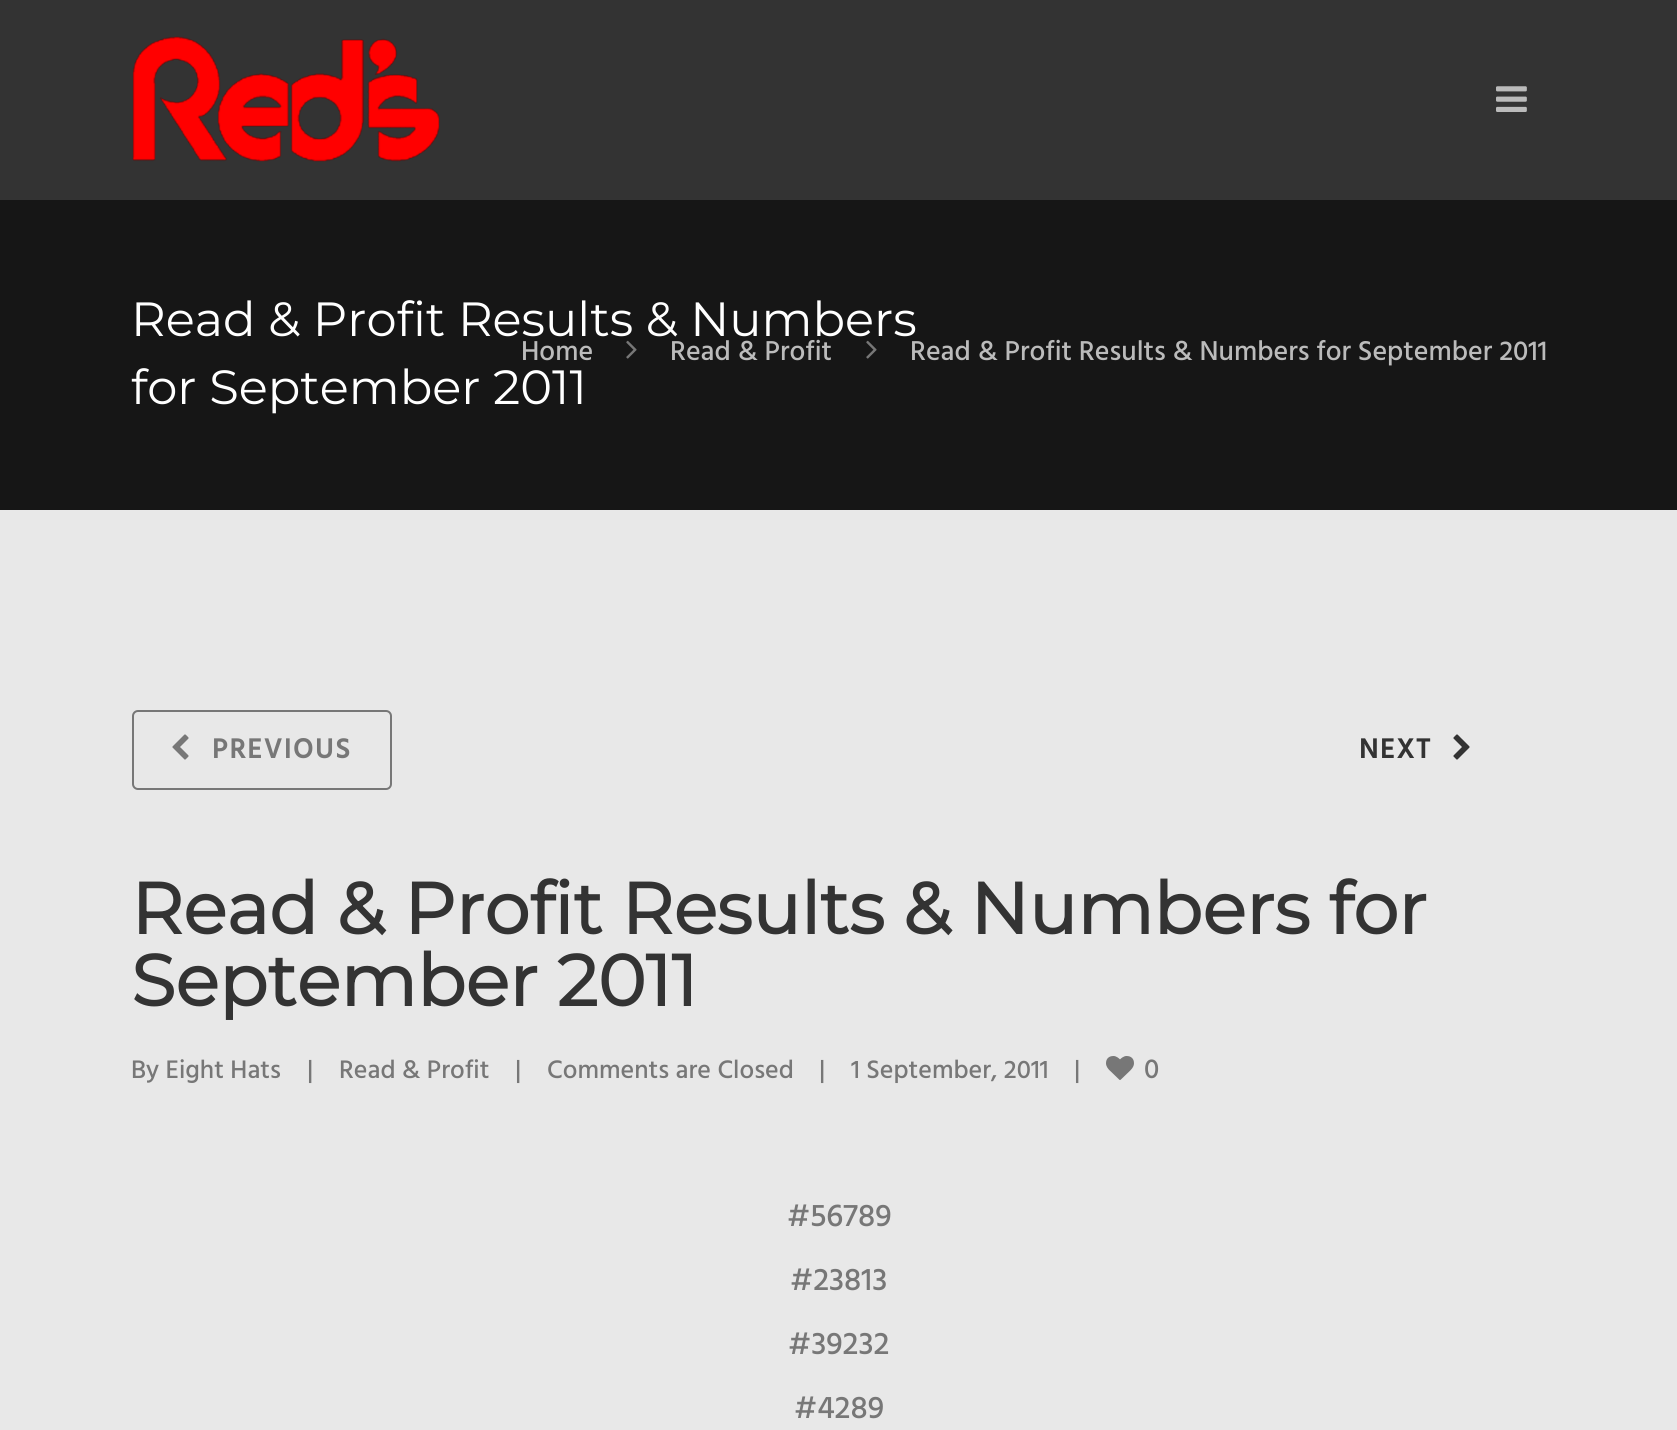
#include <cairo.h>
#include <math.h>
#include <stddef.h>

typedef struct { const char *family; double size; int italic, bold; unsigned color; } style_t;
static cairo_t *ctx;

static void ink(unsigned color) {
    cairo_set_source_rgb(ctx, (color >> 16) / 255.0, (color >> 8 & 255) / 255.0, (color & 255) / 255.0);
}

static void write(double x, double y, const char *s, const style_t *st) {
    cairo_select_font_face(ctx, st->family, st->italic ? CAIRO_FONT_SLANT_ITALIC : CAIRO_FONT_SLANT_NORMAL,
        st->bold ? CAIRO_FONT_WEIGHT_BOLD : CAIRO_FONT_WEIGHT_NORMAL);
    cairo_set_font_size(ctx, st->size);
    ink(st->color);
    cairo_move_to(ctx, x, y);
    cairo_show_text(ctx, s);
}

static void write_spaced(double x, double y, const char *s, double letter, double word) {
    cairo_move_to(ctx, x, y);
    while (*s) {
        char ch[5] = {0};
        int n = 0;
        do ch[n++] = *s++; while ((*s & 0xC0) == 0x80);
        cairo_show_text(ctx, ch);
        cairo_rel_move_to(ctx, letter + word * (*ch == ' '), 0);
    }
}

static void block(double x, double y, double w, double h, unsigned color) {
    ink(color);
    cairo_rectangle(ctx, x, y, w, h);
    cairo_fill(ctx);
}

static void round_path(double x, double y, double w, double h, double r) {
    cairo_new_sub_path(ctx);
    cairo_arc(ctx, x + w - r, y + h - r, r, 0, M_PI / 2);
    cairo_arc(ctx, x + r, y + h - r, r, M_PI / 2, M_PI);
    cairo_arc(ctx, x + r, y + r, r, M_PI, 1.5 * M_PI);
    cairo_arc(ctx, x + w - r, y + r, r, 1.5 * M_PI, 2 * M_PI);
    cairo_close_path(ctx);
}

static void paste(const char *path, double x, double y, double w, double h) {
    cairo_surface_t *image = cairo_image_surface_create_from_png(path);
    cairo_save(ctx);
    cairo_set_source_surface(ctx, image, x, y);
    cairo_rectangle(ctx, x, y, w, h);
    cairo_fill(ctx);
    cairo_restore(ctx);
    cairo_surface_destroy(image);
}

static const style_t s1 = {"Montserrat Thin", 48, 0, 0, 0xffffff};
static const style_t s2 = {"Hind Medium", 28, 0, 0, 0xbbbbbb};
static const style_t s3 = {"Montserrat", 72, 0, 1, 0x333333};
static const style_t s4 = {"Hind Medium", 26, 0, 0, 0x777777};
static const style_t s5 = {"Hind Medium", 28, 0, 0, 0x777777};
static const style_t s6 = {"Hind Medium", 32, 0, 0, 0x777777};

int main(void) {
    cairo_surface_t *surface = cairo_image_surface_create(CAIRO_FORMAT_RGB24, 1677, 1430);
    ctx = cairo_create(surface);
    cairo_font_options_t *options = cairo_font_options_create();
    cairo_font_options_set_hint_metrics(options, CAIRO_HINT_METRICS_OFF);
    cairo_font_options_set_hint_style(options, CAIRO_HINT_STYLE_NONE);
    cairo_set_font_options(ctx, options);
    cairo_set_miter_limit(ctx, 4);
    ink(0xe8e8e8);
    cairo_paint(ctx);
    block(0, 0, 1677, 200, 0x333333);
    paste("pic1.png", 132, 36, 308, 126);
    paste("pic2.png", 1496, 86, 31, 26);
    block(0, 200, 1677, 310, 0x161616);
    write(131, 336, "Read & Profit Results & Numbers", &s1);
    write(131, 404, "for September 2011", &s1);
    write(521, 360, "Home", &s2);
    paste("pic3.png", 626, 340, 11, 19);
    write(670, 360, "Read & Profit", &s2);
    paste("pic3.png", 866, 340, 11, 19);
    write(910, 360, "Read & Profit Results & Numbers for September 2011", &s2);
    round_path(133, 711, 258, 78, 5);
    ink(0x777777);
    cairo_stroke(ctx);
    paste("pic4.png", 172, 734, 17, 26);
    cairo_select_font_face(ctx, "Hind", CAIRO_FONT_SLANT_NORMAL, CAIRO_FONT_WEIGHT_BOLD);
    write_spaced(212, 758, "PREVIOUS", 2, 0);
    ink(0x333333);
    write_spaced(1359, 758, "NEXT", 2, 0);
    paste("pic5.png", 1453, 734, 17, 26);
    write(131, 934, "Read & Profit Results & Numbers for", &s3);
    write(131, 1006, "September 2011", &s3);
    write(131, 1078, "By Eight Hats", &s4);
    write(307, 1078, "|", &s4);
    write(339, 1078, "Read & Profit", &s4);
    write(515, 1078, "|", &s4);
    write(547, 1078, "Comments are Closed", &s4);
    write(819, 1078, "|", &s4);
    write(851, 1078, "1 September, 2011", &s4);
    write(1074, 1078, "|", &s4);
    paste("pic6.png", 1106, 1056, 28, 24);
    write(1144, 1078, "0", &s5);
    write(787, 1226, "#56789", &s6);
    write(790, 1290, "#23813", &s6);
    write(788, 1354, "#39232", &s6);
    write(794, 1418, "#4289", &s6);
    cairo_surface_write_to_png(surface, "screenshot.png");
    cairo_font_options_destroy(options);
    cairo_destroy(ctx);
    cairo_surface_destroy(surface);
    return 0;
}
